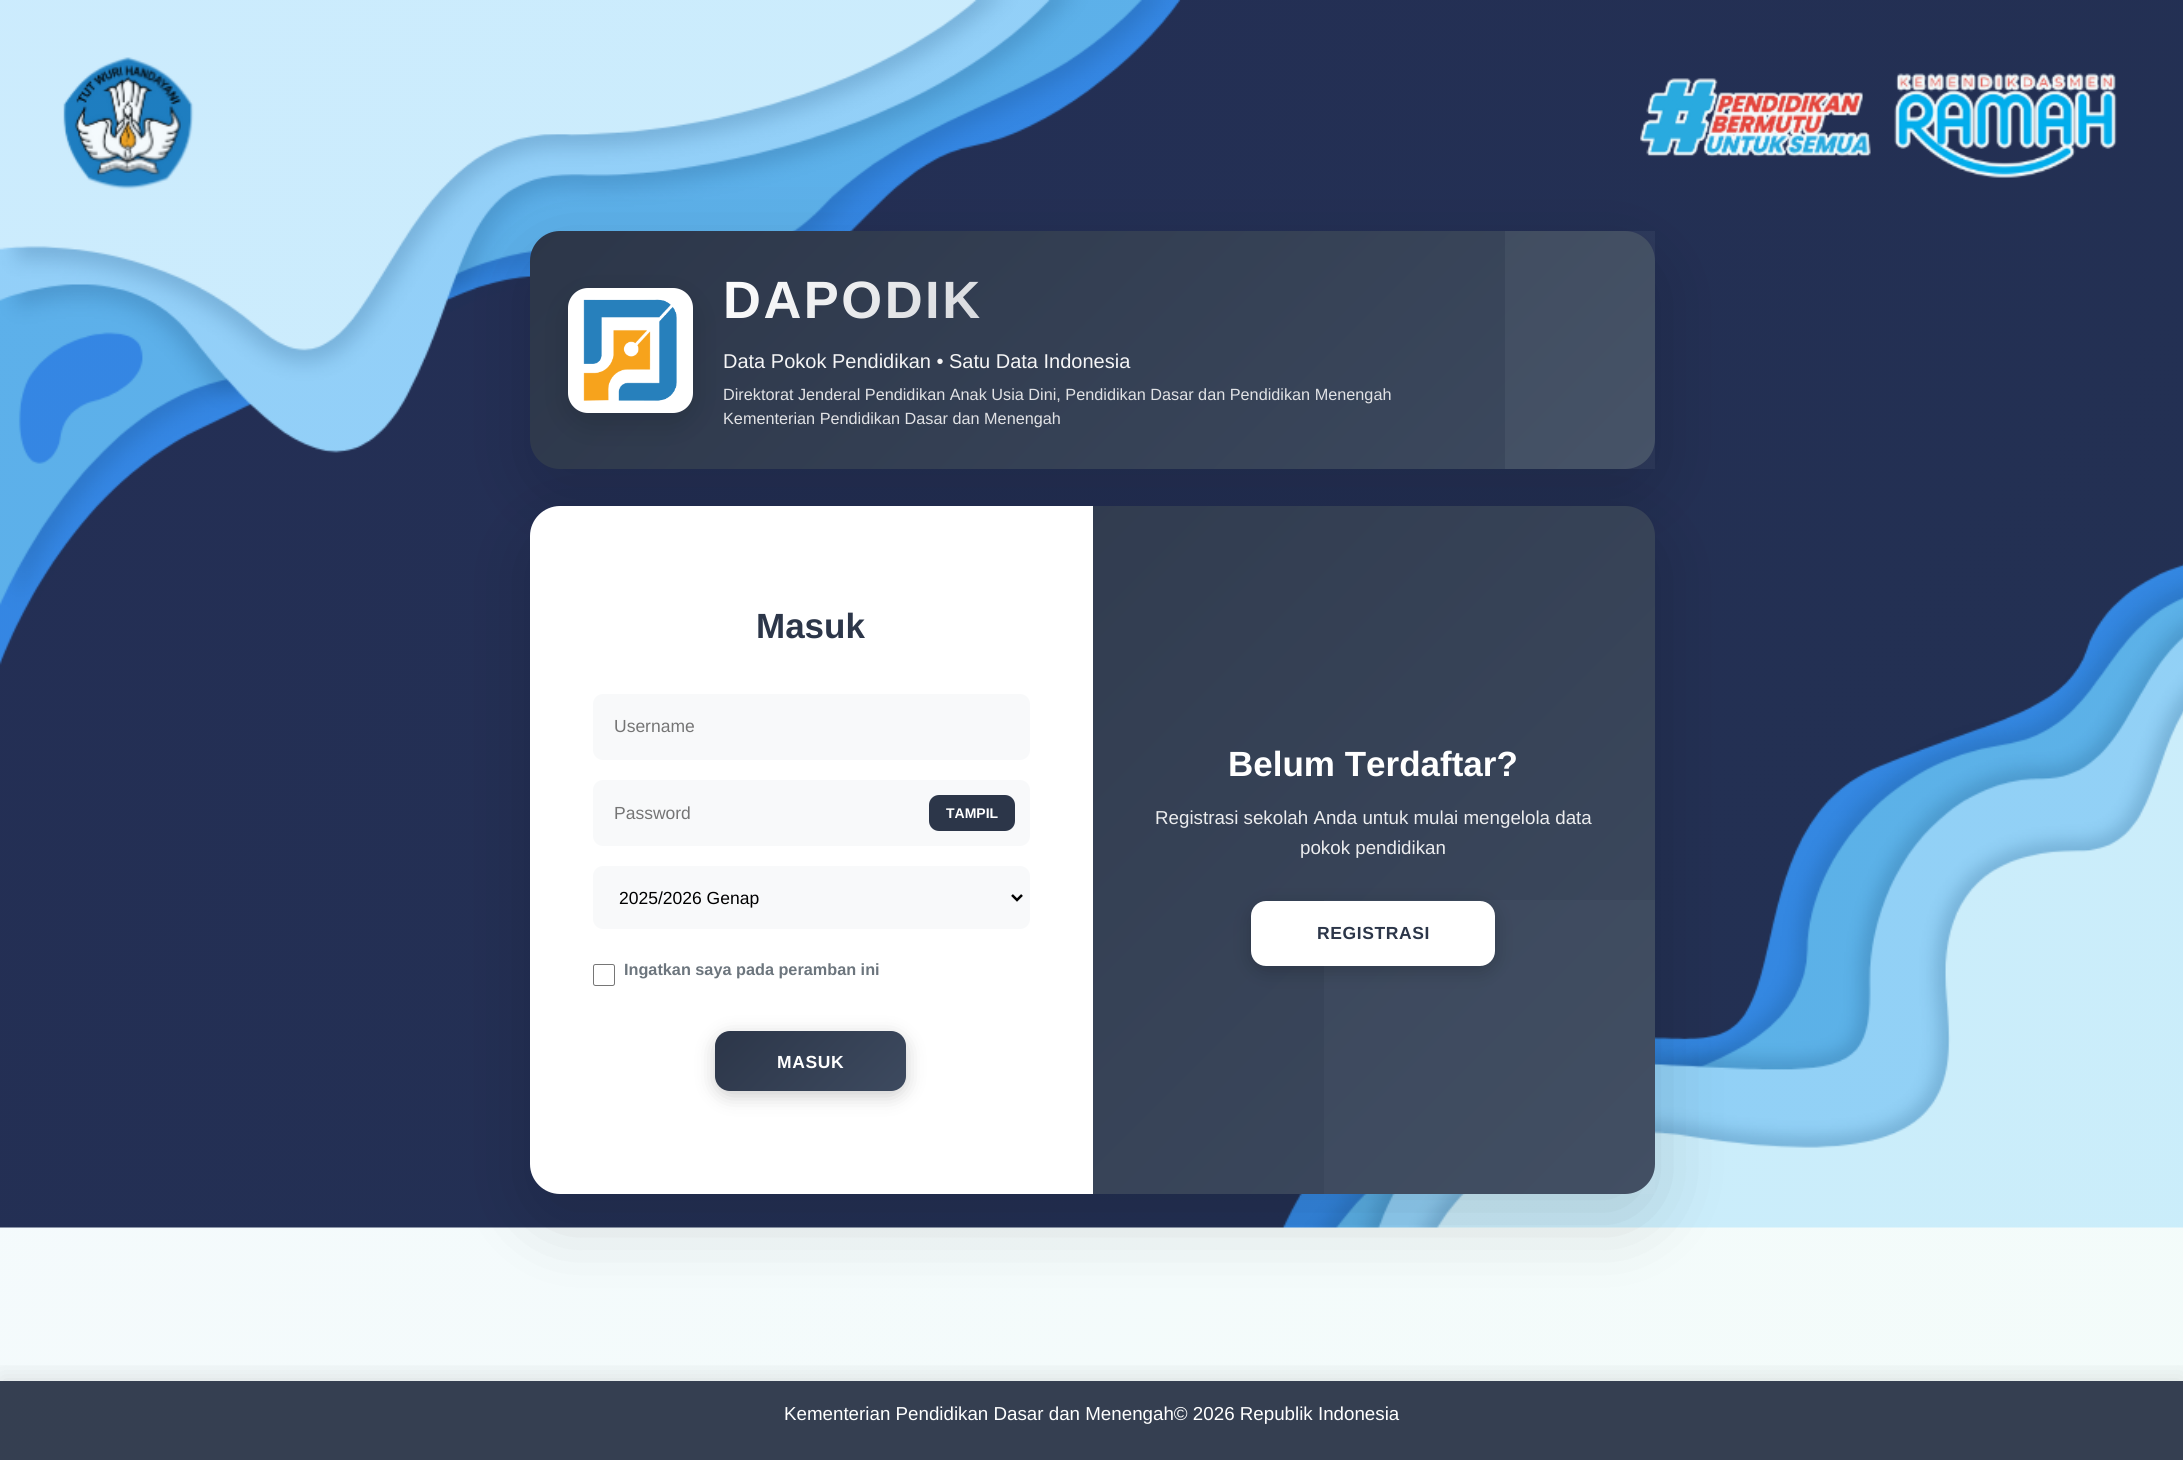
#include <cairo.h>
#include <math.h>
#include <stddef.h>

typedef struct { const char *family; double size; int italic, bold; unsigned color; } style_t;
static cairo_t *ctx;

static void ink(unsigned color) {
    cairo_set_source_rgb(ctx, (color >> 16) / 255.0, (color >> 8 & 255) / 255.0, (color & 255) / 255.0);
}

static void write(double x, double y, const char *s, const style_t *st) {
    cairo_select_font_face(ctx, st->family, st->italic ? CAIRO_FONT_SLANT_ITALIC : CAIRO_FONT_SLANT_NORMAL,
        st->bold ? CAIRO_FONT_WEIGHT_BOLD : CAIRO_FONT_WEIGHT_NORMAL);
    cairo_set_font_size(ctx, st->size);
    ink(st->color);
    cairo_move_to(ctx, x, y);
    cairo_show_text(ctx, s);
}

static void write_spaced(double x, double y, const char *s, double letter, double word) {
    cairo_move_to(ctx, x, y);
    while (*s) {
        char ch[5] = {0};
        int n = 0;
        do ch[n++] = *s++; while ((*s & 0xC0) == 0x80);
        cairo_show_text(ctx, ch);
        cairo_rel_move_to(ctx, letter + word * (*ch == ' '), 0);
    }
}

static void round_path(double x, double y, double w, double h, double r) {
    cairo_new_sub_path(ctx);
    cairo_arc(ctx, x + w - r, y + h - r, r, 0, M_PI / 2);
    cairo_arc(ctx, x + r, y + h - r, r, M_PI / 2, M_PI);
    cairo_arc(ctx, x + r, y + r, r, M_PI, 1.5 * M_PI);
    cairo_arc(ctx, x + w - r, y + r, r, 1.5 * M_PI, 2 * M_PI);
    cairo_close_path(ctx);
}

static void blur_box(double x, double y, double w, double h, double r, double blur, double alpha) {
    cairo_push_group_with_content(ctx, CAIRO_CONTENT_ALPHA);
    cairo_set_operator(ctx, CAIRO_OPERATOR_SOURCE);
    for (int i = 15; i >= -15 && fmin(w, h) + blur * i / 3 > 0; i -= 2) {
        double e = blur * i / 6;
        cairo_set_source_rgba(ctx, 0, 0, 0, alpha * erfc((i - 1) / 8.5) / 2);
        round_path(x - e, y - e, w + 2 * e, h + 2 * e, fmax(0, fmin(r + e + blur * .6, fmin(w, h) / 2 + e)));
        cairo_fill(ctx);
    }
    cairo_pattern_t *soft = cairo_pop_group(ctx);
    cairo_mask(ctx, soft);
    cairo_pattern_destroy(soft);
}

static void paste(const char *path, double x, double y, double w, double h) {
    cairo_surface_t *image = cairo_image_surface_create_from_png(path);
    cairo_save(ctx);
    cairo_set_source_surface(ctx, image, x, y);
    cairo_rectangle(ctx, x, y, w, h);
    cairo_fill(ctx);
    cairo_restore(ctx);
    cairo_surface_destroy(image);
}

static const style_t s1 = {"Liberation Sans", 20, 0, 0, 0xf5f5f6};
static const style_t s2 = {"Liberation Sans", 16.25, 0, 0, 0xe1e2e5};
static const style_t s3 = {"Liberation Sans", 35, 0, 1, 0x2c3649};
static const style_t s4 = {"Liberation Sans", 17.5, 0, 0, 0x757575};
static const style_t s5 = {"Liberation Sans", 14, 0, 1, 0xffffff};
static const style_t s6 = {"Liberation Sans", 17.5, 0, 0, 0x000000};
static const style_t s7 = {"Liberation Sans", 16.25, 0, 1, 0x6c757d};
static const style_t s8 = {"Liberation Sans", 35, 0, 1, 0xffffff};
static const style_t s9 = {"Liberation Sans", 18.75, 0, 0, 0xebecee};
static const style_t s10 = {"Liberation Sans", 18.75, 0, 0, 0xffffff};

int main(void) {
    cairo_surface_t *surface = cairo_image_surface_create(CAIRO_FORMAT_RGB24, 2183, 1460);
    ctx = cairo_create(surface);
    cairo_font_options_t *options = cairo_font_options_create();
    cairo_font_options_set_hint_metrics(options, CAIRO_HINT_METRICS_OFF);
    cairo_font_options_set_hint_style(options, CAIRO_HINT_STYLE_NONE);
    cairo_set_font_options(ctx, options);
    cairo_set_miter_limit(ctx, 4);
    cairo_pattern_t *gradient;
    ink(0xffffff);
    cairo_paint(ctx);
    paste("pic1.png", 0, 0, 2183, 1460);
    ink(0x000000);
    blur_box(530, 256, 1125, 238, 30, 37.5, 0.15);
    gradient = cairo_pattern_create_linear(752, 9, 1433, 691);
    cairo_pattern_add_color_stop_rgba(gradient, 0, 0.173, 0.212, 0.286, 1);
    cairo_pattern_add_color_stop_rgba(gradient, 1, 0.239, 0.29, 0.373, 1);
    cairo_set_source(ctx, gradient);
    cairo_pattern_destroy(gradient);
    round_path(530, 231, 1125, 238, 30);
    cairo_fill(ctx);
    ink(0x000000);
    blur_box(568, 298, 125, 125, 20, 15.5, 0.15);
    ink(0xffffff);
    round_path(568, 288, 125, 125, 20);
    cairo_fill(ctx);
    paste("pic2.png", 583, 299, 94, 102);
    cairo_select_font_face(ctx, "Liberation Sans", CAIRO_FONT_SLANT_NORMAL, CAIRO_FONT_WEIGHT_BOLD);
    cairo_set_font_size(ctx, 52.5);
    gradient = cairo_pattern_create_linear(772, 220, 934, 381);
    cairo_pattern_add_color_stop_rgba(gradient, 0, 1, 1, 1, 1);
    cairo_pattern_add_color_stop_rgba(gradient, 1, 0.839, 0.847, 0.863, 1);
    cairo_set_source(ctx, gradient);
    cairo_pattern_destroy(gradient);
    write_spaced(723, 318, "DAPODIK", 2.5, 0);
    write(723, 368, "Data Pokok Pendidikan • Satu Data Indonesia", &s1);
    write(723, 400, "Direktorat Jenderal Pendidikan Anak Usia Dini, Pendidikan Dasar dan Pendidikan Menengah", &s2);
    cairo_set_source_rgba(ctx, 1, 1, 1, 0.05);
    cairo_rectangle(ctx, 1505, 231, 150, 238);
    cairo_fill(ctx);
    ink(0x000000);
    blur_box(530, 531, 1125, 688, 30, 37.5, 0.15);
    write(723, 424, "Kementerian Pendidikan Dasar dan Menengah", &s2);
    ink(0xffffff);
    cairo_new_path(ctx);
    cairo_move_to(ctx, 560, 506);
    cairo_line_to(ctx, 1093, 506);
    cairo_line_to(ctx, 1093, 1194);
    cairo_line_to(ctx, 560, 1194);
    cairo_curve_to(ctx, 543.5, 1194, 530, 1180.5, 530, 1164);
    cairo_line_to(ctx, 530, 536);
    cairo_curve_to(ctx, 530, 519.5, 543.5, 506, 560, 506);
    cairo_close_path(ctx);
    cairo_fill(ctx);
    write(756, 638, "Masuk", &s3);
    ink(0xf8f9fa);
    round_path(593, 694, 437, 66, 10);
    cairo_fill(ctx);
    write(614, 732, "Username", &s4);
    ink(0xf8f9fa);
    round_path(593, 780, 437, 66, 10);
    cairo_fill(ctx);
    write(614, 819, "Password", &s4);
    ink(0x2c3649);
    round_path(929, 795, 86, 36, 10);
    cairo_fill(ctx);
    write(946, 818, "TAMPIL", &s5);
    ink(0xf8f9fa);
    round_path(593, 866, 437, 63, 10);
    cairo_fill(ctx);
    cairo_new_path(ctx);
    cairo_move_to(ctx, 1012, 895);
    cairo_line_to(ctx, 1017, 900);
    cairo_line_to(ctx, 1022, 895);
    ink(0x000000);
    cairo_set_line_width(ctx, 2.5);
    cairo_stroke(ctx);
    write(619, 904, "2025/2026 Genap", &s6);
    round_path(593.5, 964.5, 21, 21, 2);
    ink(0x767676);
    cairo_set_line_width(ctx, 1);
    cairo_stroke(ctx);
    write(624, 975, "Ingatkan saya pada peramban ini", &s7);
    ink(0x000000);
    blur_box(715, 1036, 191, 60, 15, 9.5, 0.2);
    gradient = cairo_pattern_create_linear(748, 998, 873, 1124);
    cairo_pattern_add_color_stop_rgba(gradient, 0, 0.173, 0.212, 0.286, 1);
    cairo_pattern_add_color_stop_rgba(gradient, 1, 0.239, 0.29, 0.373, 1);
    cairo_set_source(ctx, gradient);
    cairo_pattern_destroy(gradient);
    round_path(715, 1031, 191, 60, 15);
    cairo_fill(ctx);
    cairo_set_font_size(ctx, 17.5);
    ink(0xffffff);
    write_spaced(777, 1068, "MASUK", 0.6, 0);
    gradient = cairo_pattern_create_linear(639, 397, 1546, 1303);
    cairo_pattern_add_color_stop_rgba(gradient, 0, 0.173, 0.212, 0.286, 1);
    cairo_pattern_add_color_stop_rgba(gradient, 1, 0.239, 0.29, 0.373, 1);
    cairo_set_source(ctx, gradient);
    cairo_pattern_destroy(gradient);
    cairo_new_path(ctx);
    cairo_move_to(ctx, 1093, 506);
    cairo_line_to(ctx, 1625, 506);
    cairo_curve_to(ctx, 1641.5, 506, 1655, 519.5, 1655, 536);
    cairo_line_to(ctx, 1655, 1164);
    cairo_curve_to(ctx, 1655, 1180.5, 1641.5, 1194, 1625, 1194);
    cairo_line_to(ctx, 1093, 1194);
    cairo_close_path(ctx);
    cairo_fill(ctx);
    write(1228, 776, "Belum Terdaftar?", &s8);
    write(1155, 824, "Registrasi sekolah Anda untuk mulai mengelola data", &s9);
    write(1300, 854, "pokok pendidikan", &s9);
    cairo_set_source_rgba(ctx, 1, 1, 1, 0.03);
    cairo_rectangle(ctx, 1324, 900, 331, 294);
    cairo_fill(ctx);
    ink(0x000000);
    blur_box(1251, 906, 244, 65, 15, 9.5, 0.2);
    ink(0xffffff);
    round_path(1252.5, 902.5, 241, 62, 13.5);
    cairo_fill_preserve(ctx);
    cairo_set_line_width(ctx, 3);
    cairo_stroke(ctx);
    cairo_select_font_face(ctx, "Liberation Sans", CAIRO_FONT_SLANT_NORMAL, CAIRO_FONT_WEIGHT_BOLD);
    cairo_set_font_size(ctx, 17.5);
    ink(0x2c3649);
    write_spaced(1317, 939, "REGISTRASI", 0.6, 0);
    cairo_save(ctx);
    cairo_rectangle(ctx, 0, 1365, 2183, 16);
    cairo_clip(ctx);
    ink(0x000000);
    blur_box(0, 1376, 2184, 79, 0, 12.5, 0.1);
    cairo_restore(ctx);
    cairo_set_source_rgba(ctx, 0.173, 0.212, 0.286, 0.95);
    cairo_rectangle(ctx, 0, 1381, 2183, 79);
    cairo_fill(ctx);
    write(784, 1420, "Kementerian Pendidikan Dasar dan Menengah© 2026 Republik Indonesia", &s10);
    cairo_surface_write_to_png(surface, "screenshot.png");
    cairo_font_options_destroy(options);
    cairo_destroy(ctx);
    cairo_surface_destroy(surface);
    return 0;
}
